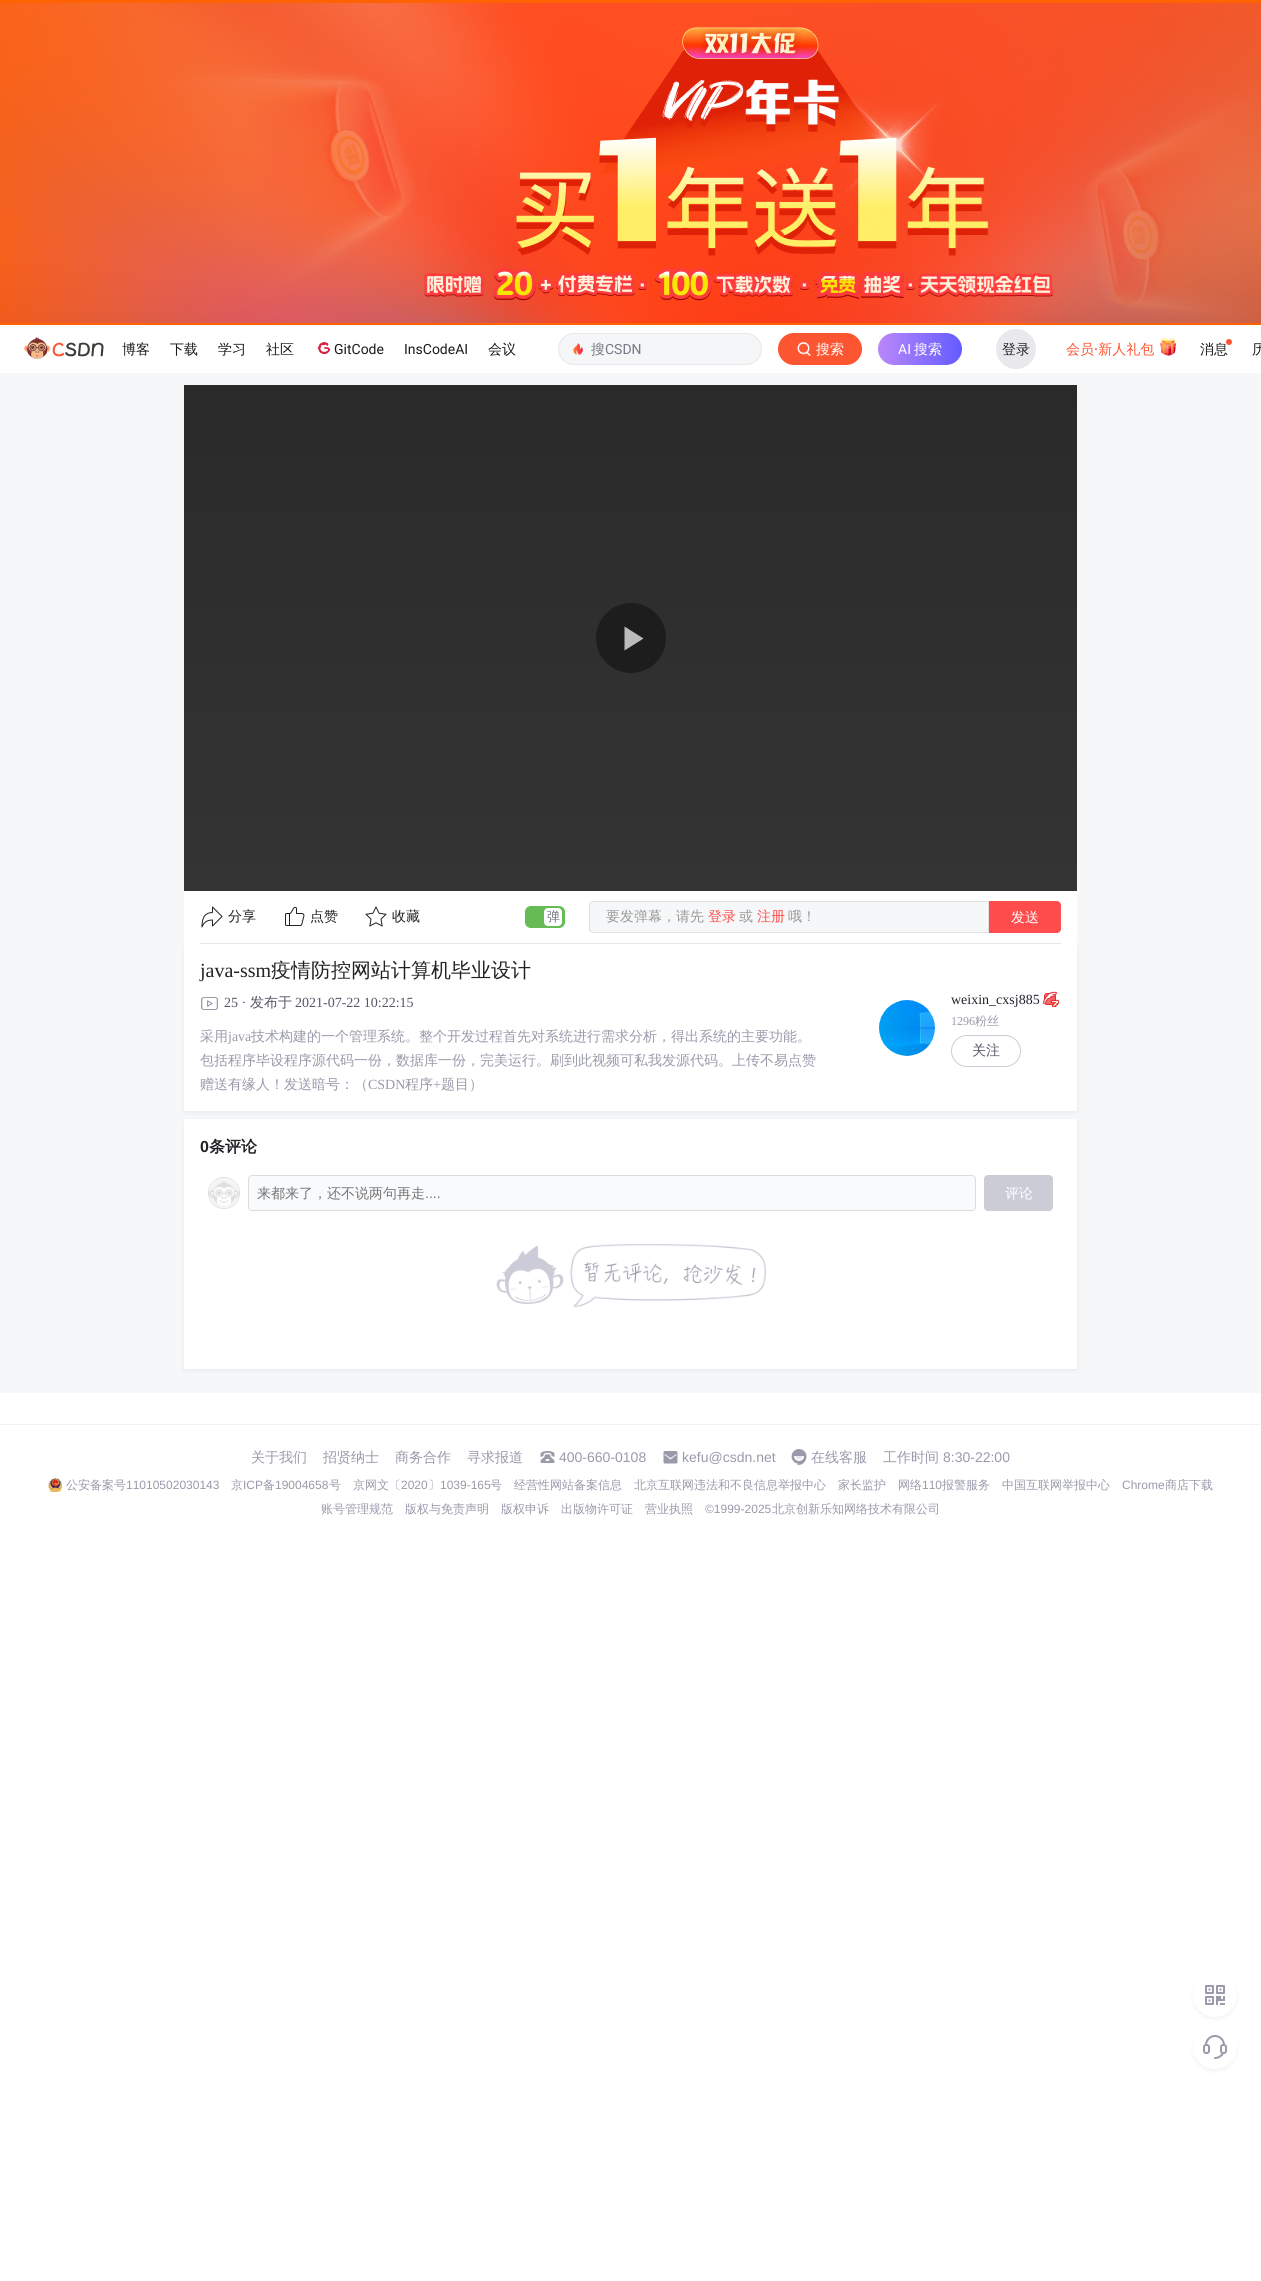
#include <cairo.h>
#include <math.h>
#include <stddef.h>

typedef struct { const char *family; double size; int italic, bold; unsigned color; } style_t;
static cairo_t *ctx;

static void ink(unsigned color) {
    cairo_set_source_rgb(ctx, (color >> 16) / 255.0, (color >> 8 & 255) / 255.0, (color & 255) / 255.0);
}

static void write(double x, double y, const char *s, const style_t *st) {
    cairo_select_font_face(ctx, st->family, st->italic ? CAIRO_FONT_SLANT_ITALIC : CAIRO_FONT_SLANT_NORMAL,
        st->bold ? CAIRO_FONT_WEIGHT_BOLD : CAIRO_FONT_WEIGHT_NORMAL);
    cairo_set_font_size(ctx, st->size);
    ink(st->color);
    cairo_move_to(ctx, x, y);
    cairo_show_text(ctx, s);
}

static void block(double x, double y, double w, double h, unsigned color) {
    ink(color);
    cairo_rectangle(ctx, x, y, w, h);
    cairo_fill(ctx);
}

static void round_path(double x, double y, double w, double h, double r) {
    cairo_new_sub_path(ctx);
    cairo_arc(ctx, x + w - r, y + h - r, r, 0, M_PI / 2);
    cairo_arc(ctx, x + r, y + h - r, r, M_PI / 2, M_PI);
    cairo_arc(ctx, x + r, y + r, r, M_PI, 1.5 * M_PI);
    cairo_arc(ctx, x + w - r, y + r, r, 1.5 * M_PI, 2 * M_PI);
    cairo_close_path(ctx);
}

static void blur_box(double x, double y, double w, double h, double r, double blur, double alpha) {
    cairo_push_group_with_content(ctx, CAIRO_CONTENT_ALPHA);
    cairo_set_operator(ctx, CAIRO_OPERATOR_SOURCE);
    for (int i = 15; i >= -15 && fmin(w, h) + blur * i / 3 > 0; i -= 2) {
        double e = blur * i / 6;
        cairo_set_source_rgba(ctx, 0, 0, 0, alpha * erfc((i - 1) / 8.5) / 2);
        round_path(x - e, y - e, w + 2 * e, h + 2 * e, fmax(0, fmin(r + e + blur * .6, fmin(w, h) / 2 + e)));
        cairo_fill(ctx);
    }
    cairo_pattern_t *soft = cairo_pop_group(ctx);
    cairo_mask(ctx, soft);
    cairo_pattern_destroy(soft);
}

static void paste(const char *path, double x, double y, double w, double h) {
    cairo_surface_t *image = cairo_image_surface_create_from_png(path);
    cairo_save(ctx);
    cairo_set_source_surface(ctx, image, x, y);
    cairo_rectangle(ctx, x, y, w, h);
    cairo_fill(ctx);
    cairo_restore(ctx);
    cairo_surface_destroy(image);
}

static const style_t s1 = {"WenQuanYi Zen Hei Medium", 14, 0, 0, 0x1a1a1a};
static const style_t s2 = {"Roboto", 14, 0, 0, 0x1a1a1a};
static const style_t s3 = {"WenQuanYi Zen Hei Medium", 14, 0, 0, 0x777888};
static const style_t s4 = {"Roboto", 14, 0, 0, 0x777888};
static const style_t s5 = {"WenQuanYi Zen Hei Medium", 14, 0, 0, 0xffffff};
static const style_t s6 = {"Roboto", 14, 0, 0, 0xffffff};
static const style_t s7 = {"WenQuanYi Zen Hei Medium", 14, 0, 0, 0x222226};
static const style_t s8 = {"WenQuanYi Zen Hei Medium", 14, 0, 0, 0xfc5531};
static const style_t s9 = {"Roboto Medium", 14, 0, 0, 0xfc5531};
static const style_t s10 = {"WenQuanYi Zen Hei Medium", 13, 0, 0, 0x6d7278};
static const style_t s11 = {"WenQuanYi Zen Hei Medium", 14, 0, 0, 0x999999};
static const style_t s12 = {"WenQuanYi Zen Hei Medium", 14, 0, 0, 0xff4d4d};
static const style_t s13 = {"Liberation Serif", 20, 0, 0, 0x222226};
static const style_t s14 = {"WenQuanYi Zen Hei Medium", 20, 0, 0, 0x222226};
static const style_t s15 = {"Liberation Serif", 14, 0, 0, 0x555666};
static const style_t s16 = {"WenQuanYi Zen Hei Medium", 14, 0, 0, 0x555666};
static const style_t s17 = {"WenQuanYi Zen Hei Medium", 14, 0, 0, 0x999aaa};
static const style_t s18 = {"Liberation Serif", 14, 0, 0, 0x999aaa};
static const style_t s19 = {"Liberation Serif", 14, 0, 0, 0x20232c};
static const style_t s20 = {"Liberation Serif", 12, 0, 0, 0x999aaa};
static const style_t s21 = {"WenQuanYi Zen Hei Medium", 12, 0, 0, 0x999aaa};
static const style_t s22 = {"Liberation Sans", 16, 0, 1, 0x222226};
static const style_t s23 = {"WenQuanYi Zen Hei", 16, 0, 1, 0x222226};
static const style_t s24 = {"WenQuanYi Zen Hei Medium", 14, 0, 0, 0x757575};
static const style_t s25 = {"Liberation Sans", 14, 0, 0, 0x757575};
static const style_t s26 = {"Liberation Sans", 14, 0, 0, 0x999aaa};
static const style_t s27 = {"Liberation Sans", 12, 0, 0, 0x999aaa};

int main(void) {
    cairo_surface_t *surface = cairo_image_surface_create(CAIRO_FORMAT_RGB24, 1261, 2281);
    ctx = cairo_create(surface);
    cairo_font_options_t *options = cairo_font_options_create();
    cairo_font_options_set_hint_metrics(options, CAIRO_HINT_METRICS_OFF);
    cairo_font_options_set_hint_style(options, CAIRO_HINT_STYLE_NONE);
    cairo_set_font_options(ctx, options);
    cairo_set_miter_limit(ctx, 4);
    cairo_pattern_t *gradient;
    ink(0xffffff);
    cairo_paint(ctx);
    block(0, 0, 1261, 325, 0xff6200);
    paste("pic1.png", 0, 3, 1261, 320);
    paste("pic2.png", 24, 337, 80, 22);
    write(122, 354, "博客", &s1);
    write(170, 354, "下载", &s1);
    write(218, 354, "学习", &s1);
    write(266, 354, "社区", &s1);
    paste("pic3.png", 318, 342, 13, 13);
    write(334, 354, "GitCode", &s2);
    write(404, 354, "InsCodeAI", &s2);
    write(488, 354, "会议", &s1);
    ink(0xf5f6f7);
    round_path(558.5, 333.5, 203, 31, 15.5);
    cairo_fill_preserve(ctx);
    ink(0xe8e8ed);
    cairo_set_line_width(ctx, 1);
    cairo_stroke(ctx);
    paste("pic4.png", 573, 343, 10, 12);
    write(591, 354, "搜", &s3);
    write(605, 354, "CSDN", &s4);
    ink(0xfc5531);
    round_path(778, 333, 84, 32, 16);
    cairo_fill(ctx);
    paste("pic5.png", 797, 342, 14, 15);
    write(816, 354, "搜索", &s5);
    gradient = cairo_pattern_create_linear(878, 349, 962, 349);
    cairo_pattern_add_color_stop_rgba(gradient, 0, 0.729, 0.533, 0.98, 1);
    cairo_pattern_add_color_stop_rgba(gradient, 1, 0.388, 0.357, 1, 1);
    cairo_set_source(ctx, gradient);
    cairo_pattern_destroy(gradient);
    round_path(878, 333, 84, 32, 16);
    cairo_fill(ctx);
    write(898, 354, "AI", &s6);
    write(914, 354, "搜索", &s5);
    ink(0xe8e8ed);
    cairo_new_path(ctx);
    cairo_arc(ctx, 1016, 349, 20, 0, 2 * M_PI);
    cairo_fill(ctx);
    write(1002, 354, "登录", &s7);
    write(1066, 354, "会员 新人礼包", &s8);
    paste("pic6.png", 1160, 338, 16, 18);
    write(1094, 354, "·", &s9);
    write(1200, 354, "消息", &s1);
    ink(0xfc5531);
    cairo_new_path(ctx);
    cairo_arc(ctx, 1229, 342, 3, 0, 2 * M_PI);
    cairo_fill(ctx);
    write(1252, 354, "历", &s1);
    block(0, 373, 1261, 1020, 0xf6f7f8);
    gradient = cairo_pattern_create_linear(631, 385, 631, 891);
    cairo_pattern_add_color_stop_rgba(gradient, 0, 0.165, 0.165, 0.165, 1);
    cairo_pattern_add_color_stop_rgba(gradient, 1, 0.204, 0.204, 0.204, 1);
    cairo_set_source(ctx, gradient);
    cairo_pattern_destroy(gradient);
    cairo_rectangle(ctx, 184, 385, 893, 506);
    cairo_fill(ctx);
    ink(0x1d1d1d);
    cairo_arc(ctx, 631, 638, 35, 0, 2 * M_PI);
    cairo_fill(ctx);
    ink(0xbbbbbb);
    cairo_new_path(ctx);
    cairo_move_to(ctx, 634, 632.5);
    cairo_line_to(ctx, 643.5, 638.5);
    cairo_line_to(ctx, 634, 644.5);
    cairo_close_path(ctx);
    cairo_move_to(ctx, 624.5, 626.5);
    cairo_line_to(ctx, 634, 632.5);
    cairo_line_to(ctx, 634, 644.5);
    cairo_line_to(ctx, 624.5, 650.5);
    cairo_close_path(ctx);
    cairo_fill(ctx);
    block(184, 891, 893, 53, 0xffffff);
    paste("pic7.png", 201, 906, 22, 22);
    write(228, 921, "分享", &s7);
    paste("pic8.png", 285, 907, 20, 19);
    write(310, 921, "点赞", &s7);
    paste("pic9.png", 365, 906, 22, 21);
    write(392, 921, "收藏", &s7);
    ink(0x66bb55);
    round_path(525.5, 906.5, 39, 21, 5.5);
    cairo_fill_preserve(ctx);
    cairo_stroke(ctx);
    ink(0xffffff);
    round_path(544, 908, 18, 18, 4);
    cairo_fill(ctx);
    write(547, 921, "弹", &s10);
    ink(0xf6f7f8);
    cairo_new_path(ctx);
    cairo_move_to(ctx, 593, 901.5);
    cairo_line_to(ctx, 988.5, 901.5);
    cairo_line_to(ctx, 988.5, 932.5);
    cairo_line_to(ctx, 593, 932.5);
    cairo_curve_to(ctx, 591, 932.5, 589.5, 931, 589.5, 929);
    cairo_line_to(ctx, 589.5, 905);
    cairo_curve_to(ctx, 589.5, 903, 591, 901.5, 593, 901.5);
    cairo_close_path(ctx);
    cairo_fill_preserve(ctx);
    ink(0xe0e0e0);
    cairo_stroke(ctx);
    write(606, 921, "要发弹幕，请先", &s11);
    write(708, 921, "登录", &s12);
    write(739, 921, "或", &s11);
    write(757, 921, "注册", &s12);
    write(788, 921, "哦！", &s11);
    ink(0xff4d4d);
    cairo_new_path(ctx);
    cairo_move_to(ctx, 989, 901);
    cairo_line_to(ctx, 1057, 901);
    cairo_curve_to(ctx, 1059, 901, 1061, 903, 1061, 905);
    cairo_line_to(ctx, 1061, 929);
    cairo_curve_to(ctx, 1061, 931, 1059, 933, 1057, 933);
    cairo_line_to(ctx, 989, 933);
    cairo_close_path(ctx);
    cairo_fill(ctx);
    write(1011, 922, "发送", &s5);
    block(200, 943, 861, 1, 0xe8e8ee);
    ink(0x000000);
    blur_box(184, 946, 893, 167, 0, 2, 0.05);
    block(184, 944, 893, 167, 0xffffff);
    write(200, 977, "java-ssm", &s13);
    write(271, 977, "疫情防控网站计算机毕业设计", &s14);
    paste("pic10.png", 201, 997, 17, 13);
    write(224, 1007, "25 ·", &s15);
    write(250, 1007, "发布于", &s16);
    write(295, 1007, "2021-07-22 10:22:15", &s15);
    write(200, 1041, "采用", &s17);
    write(228, 1041, "java", &s18);
    write(251, 1041, "技术构建的一个管理系统。整个开发过程首先对系统进行需求分析，得出系统的主要功能。", &s17);
    write(200, 1065, "包括程序毕设程序源代码一份，数据库一份，完美运行。刷到此视频可私我发源代码。上传不易点赞", &s17);
    write(200, 1089, "赠送有缘人！发送暗号：（", &s17);
    write(368, 1089, "CSDN", &s18);
    write(405, 1089, "程序", &s17);
    write(433, 1089, "+", &s18);
    write(441, 1089, "题目）", &s17);
    paste("pic11.png", 879, 1000, 56, 56);
    write(951, 1004, "weixin_cxsj885", &s19);
    paste("pic12.png", 1042, 991, 18, 16);
    write(951, 1025, "1296", &s20);
    write(975, 1025, "粉丝", &s21);
    round_path(951.5, 1035.5, 69, 31, 15.5);
    ink(0xccccd8);
    cairo_stroke(ctx);
    write(972, 1055, "关注", &s16);
    ink(0x000000);
    blur_box(184, 1121, 893, 250, 0, 2, 0.05);
    block(184, 1119, 893, 250, 0xffffff);
    write(200, 1152, "0", &s22);
    write(209, 1152, "条评论", &s23);
    cairo_new_path(ctx);
    cairo_arc(ctx, 224, 1193, 15.5, 0, 2 * M_PI);
    ink(0xe0e0e0);
    cairo_stroke(ctx);
    paste("pic13.png", 209, 1178, 30, 30);
    ink(0xf9fafc);
    round_path(248.5, 1175.5, 727, 35, 3.5);
    cairo_fill_preserve(ctx);
    ink(0xdadde0);
    cairo_stroke(ctx);
    write(257, 1198, "来都来了，还不说两句再走", &s24);
    write(425, 1198, "....", &s25);
    ink(0xccccd7);
    round_path(984, 1175, 69, 36, 4);
    cairo_fill(ctx);
    write(1005, 1198, "评论", &s5);
    paste("pic14.png", 496, 1244, 270, 64);
    block(0, 1424, 1261, 1, 0xf2f2f2);
    write(251, 1462, "关于我们", &s17);
    write(323, 1462, "招贤纳士", &s17);
    write(395, 1462, "商务合作", &s17);
    write(467, 1462, "寻求报道", &s17);
    paste("pic15.png", 540, 1451, 15, 12);
    write(559, 1462, "400-660-0108", &s26);
    paste("pic16.png", 663, 1451, 15, 13);
    write(682, 1462, "kefu@csdn.net", &s26);
    paste("pic17.png", 791, 1449, 16, 16);
    write(811, 1462, "在线客服", &s17);
    write(883, 1462, "工作时间", &s17);
    write(943, 1462, "8:30-22:00", &s26);
    paste("pic18.png", 48, 1478, 14, 14);
    write(66, 1489, "公安备案号", &s21);
    write(126, 1489, "11010502030143", &s27);
    write(231, 1489, "京", &s21);
    write(243, 1489, "ICP", &s27);
    write(263, 1489, "备", &s21);
    write(275, 1489, "19004658", &s27);
    write(329, 1489, "号", &s21);
    write(353, 1489, "京网文〔", &s21);
    write(401, 1489, "2020", &s27);
    write(428, 1489, "〕", &s21);
    write(440, 1489, "1039-165", &s27);
    write(490, 1489, "号", &s21);
    write(514, 1489, "经营性网站备案信息", &s21);
    write(634, 1489, "北京互联网违法和不良信息举报中心", &s21);
    write(838, 1489, "家长监护", &s21);
    write(898, 1489, "网络", &s21);
    write(922, 1489, "110", &s27);
    write(942, 1489, "报警服务", &s21);
    write(1002, 1489, "中国互联网举报中心", &s21);
    write(1122, 1489, "Chrome", &s27);
    write(1165, 1489, "商店下载", &s21);
    write(321, 1513, "账号管理规范", &s21);
    write(405, 1513, "版权与免责声明", &s21);
    write(501, 1513, "版权申诉", &s21);
    write(561, 1513, "出版物许可证", &s21);
    write(645, 1513, "营业执照", &s21);
    write(705, 1513, "©1999-2025", &s27);
    write(772, 1513, "北京创新乐知网络技术有限公司", &s21);
    ink(0x000000);
    blur_box(1193, 1975, 44, 44, 22, 2, 0.05);
    ink(0xffffff);
    cairo_arc(ctx, 1215, 1995, 22, 0, 2 * M_PI);
    cairo_fill(ctx);
    paste("pic19.png", 1205, 1985, 20, 20);
    ink(0x000000);
    blur_box(1193, 2027, 44, 44, 22, 2, 0.05);
    ink(0xffffff);
    cairo_arc(ctx, 1215, 2047, 22, 0, 2 * M_PI);
    cairo_fill(ctx);
    paste("pic20.png", 1203, 2035, 24, 24);
    cairo_surface_write_to_png(surface, "screenshot.png");
    cairo_font_options_destroy(options);
    cairo_destroy(ctx);
    cairo_surface_destroy(surface);
    return 0;
}
